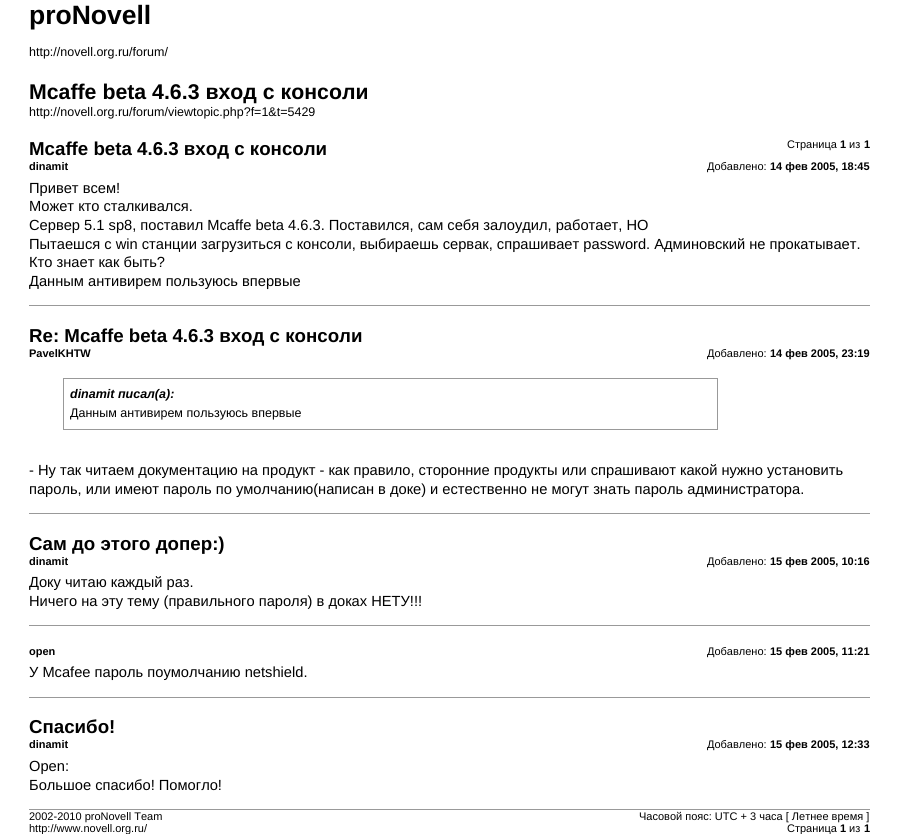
#include <cairo.h>
#include <math.h>
#include <stddef.h>

typedef struct { const char *family; double size; int italic, bold; unsigned color; } style_t;
static cairo_t *ctx;

static void ink(unsigned color) {
    cairo_set_source_rgb(ctx, (color >> 16) / 255.0, (color >> 8 & 255) / 255.0, (color & 255) / 255.0);
}

static void write(double x, double y, const char *s, const style_t *st) {
    cairo_select_font_face(ctx, st->family, st->italic ? CAIRO_FONT_SLANT_ITALIC : CAIRO_FONT_SLANT_NORMAL,
        st->bold ? CAIRO_FONT_WEIGHT_BOLD : CAIRO_FONT_WEIGHT_NORMAL);
    cairo_set_font_size(ctx, st->size);
    ink(st->color);
    cairo_move_to(ctx, x, y);
    cairo_show_text(ctx, s);
}

static void block(double x, double y, double w, double h, unsigned color) {
    ink(color);
    cairo_rectangle(ctx, x, y, w, h);
    cairo_fill(ctx);
}

static const style_t s1 = {"Liberation Sans", 26.5, 0, 1, 0x000000};
static const style_t s2 = {"Liberation Sans", 12.5, 0, 0, 0x000000};
static const style_t s3 = {"Liberation Sans", 21.3, 0, 1, 0x000000};
static const style_t s4 = {"Liberation Sans", 11, 0, 0, 0x000000};
static const style_t s5 = {"Liberation Sans", 11, 0, 1, 0x000000};
static const style_t s6 = {"Liberation Sans", 18.7, 0, 1, 0x000000};
static const style_t s7 = {"Liberation Sans", 14.67, 0, 0, 0x000000};
static const style_t s8 = {"Liberation Sans", 12.5, 1, 1, 0x000000};

int main(void) {
    cairo_surface_t *surface = cairo_image_surface_create(CAIRO_FORMAT_RGB24, 899, 834);
    ctx = cairo_create(surface);
    cairo_font_options_t *options = cairo_font_options_create();
    cairo_font_options_set_hint_metrics(options, CAIRO_HINT_METRICS_OFF);
    cairo_font_options_set_hint_style(options, CAIRO_HINT_STYLE_NONE);
    cairo_set_font_options(ctx, options);
    cairo_set_miter_limit(ctx, 4);
    ink(0xffffff);
    cairo_paint(ctx);
    write(29, 24, "proNovell", &s1);
    write(29, 56, "http://novell.org.ru/forum/", &s2);
    write(29, 99, "Mcaffe beta 4.6.3 вход с консоли", &s3);
    write(29, 116, "http://novell.org.ru/forum/viewtopic.php?f=1&t=5429", &s2);
    write(787, 148, "Страница", &s4);
    write(840, 148, "1", &s5);
    write(849, 148, "из", &s4);
    write(864, 148, "1", &s5);
    write(29, 155, "Mcaffe beta 4.6.3 вход с консоли", &s6);
    write(29, 170, "dinamit", &s5);
    write(707, 170, "Добавлено:", &s4);
    write(770, 170, "14 фев 2005, 18:45", &s5);
    write(29, 193, "Привет всем!", &s7);
    write(29, 211, "Может кто сталкивался.", &s7);
    write(29, 230, "Сервер 5.1 sp8, поставил Mcaffe beta 4.6.3. Поставился, сам себя залоудил, работает, НО", &s7);
    write(29, 249, "Пытаешся с win станции загрузиться с консоли, выбираешь сервак, спрашивает password. Админовский не прокатывает.", &s7);
    write(29, 267, "Кто знает как быть?", &s7);
    write(29, 286, "Данным антивирем пользуюсь впервые", &s7);
    block(29, 305, 841, 1, 0x999999);
    write(29, 342, "Re: Mcaffe beta 4.6.3 вход с консоли", &s6);
    write(29, 357, "PavelKHTW", &s5);
    write(707, 357, "Добавлено:", &s4);
    write(770, 357, "14 фев 2005, 23:19", &s5);
    cairo_rectangle(ctx, 63.5, 378.5, 654, 51);
    ink(0x999999);
    cairo_set_line_width(ctx, 1);
    cairo_stroke(ctx);
    write(70, 398, "dinamit писал(а):", &s8);
    write(70, 417, "Данным антивирем пользуюсь впервые", &s2);
    write(29, 475, "- Ну так читаем документацию на продукт - как правило, сторонние продукты или спрашивают какой нужно установить", &s7);
    write(29, 494, "пароль, или имеют пароль по умолчанию(написан в доке)", &s7);
    write(430, 494, "и естественно не могут знать пароль администратора.", &s7);
    block(29, 513, 841, 1, 0x999999);
    write(29, 550, "Сам до этого допер:)", &s6);
    write(29, 565, "dinamit", &s5);
    write(707, 565, "Добавлено:", &s4);
    write(770, 565, "15 фев 2005, 10:16", &s5);
    write(29, 587, "Доку читаю каждый раз.", &s7);
    write(29, 606, "Ничего на эту тему (правильного пароля) в доках НЕТУ!!!", &s7);
    block(29, 625, 841, 1, 0x999999);
    write(29, 655, "open", &s5);
    write(707, 655, "Добавлено:", &s4);
    write(770, 655, "15 фев 2005, 11:21", &s5);
    write(29, 677, "У Mcafee пароль поумолчанию netshield.", &s7);
    block(29, 697, 841, 1, 0x999999);
    write(29, 733, "Спасибо!", &s6);
    write(29, 748, "dinamit", &s5);
    write(707, 748, "Добавлено:", &s4);
    write(770, 748, "15 фев 2005, 12:33", &s5);
    write(29, 771, "Open:", &s7);
    write(29, 790, "Большое спасибо! Помогло!", &s7);
    block(29, 809, 841, 1, 0x999999);
    write(29, 820, "2002-2010 proNovell Team", &s4);
    write(29, 832, "http://www.novell.org.ru/", &s4);
    write(639, 820, "Часовой пояс: UTC + 3 часа [ Летнее время ]", &s4);
    write(787, 832, "Страница", &s4);
    write(840, 832, "1", &s5);
    write(849, 832, "из", &s4);
    write(864, 832, "1", &s5);
    cairo_surface_write_to_png(surface, "screenshot.png");
    cairo_font_options_destroy(options);
    cairo_destroy(ctx);
    cairo_surface_destroy(surface);
    return 0;
}
